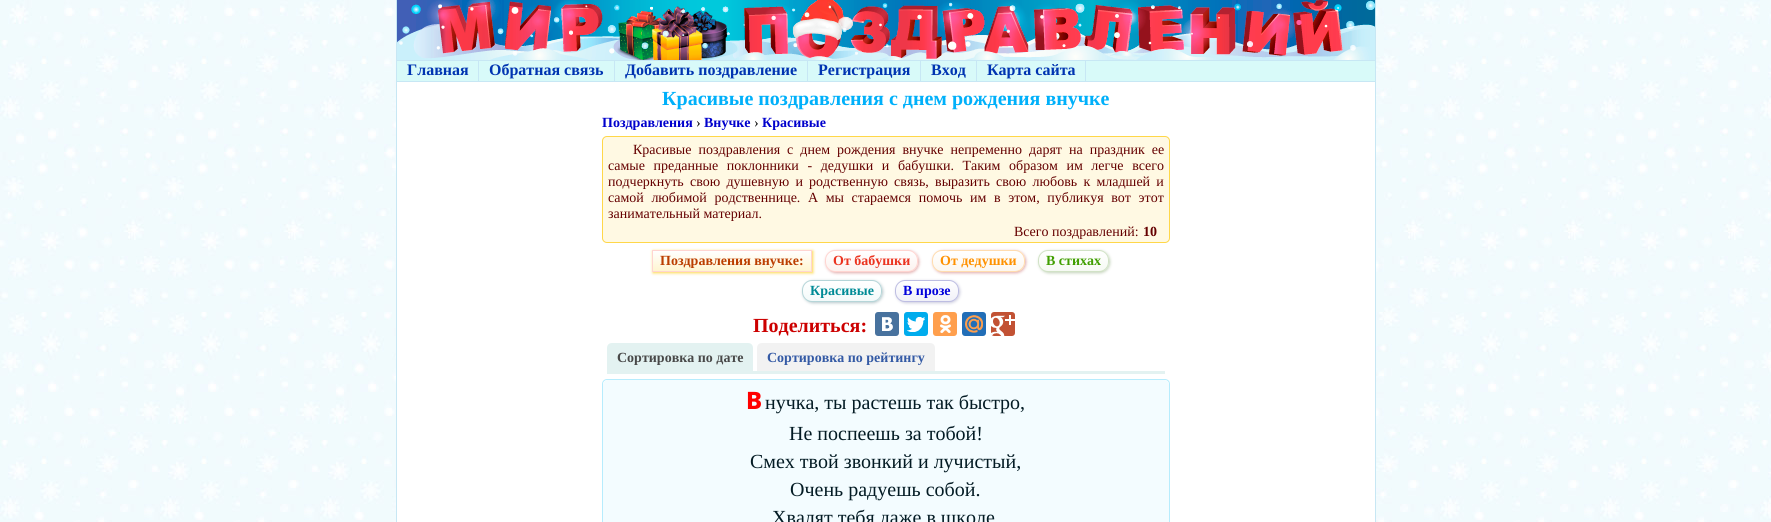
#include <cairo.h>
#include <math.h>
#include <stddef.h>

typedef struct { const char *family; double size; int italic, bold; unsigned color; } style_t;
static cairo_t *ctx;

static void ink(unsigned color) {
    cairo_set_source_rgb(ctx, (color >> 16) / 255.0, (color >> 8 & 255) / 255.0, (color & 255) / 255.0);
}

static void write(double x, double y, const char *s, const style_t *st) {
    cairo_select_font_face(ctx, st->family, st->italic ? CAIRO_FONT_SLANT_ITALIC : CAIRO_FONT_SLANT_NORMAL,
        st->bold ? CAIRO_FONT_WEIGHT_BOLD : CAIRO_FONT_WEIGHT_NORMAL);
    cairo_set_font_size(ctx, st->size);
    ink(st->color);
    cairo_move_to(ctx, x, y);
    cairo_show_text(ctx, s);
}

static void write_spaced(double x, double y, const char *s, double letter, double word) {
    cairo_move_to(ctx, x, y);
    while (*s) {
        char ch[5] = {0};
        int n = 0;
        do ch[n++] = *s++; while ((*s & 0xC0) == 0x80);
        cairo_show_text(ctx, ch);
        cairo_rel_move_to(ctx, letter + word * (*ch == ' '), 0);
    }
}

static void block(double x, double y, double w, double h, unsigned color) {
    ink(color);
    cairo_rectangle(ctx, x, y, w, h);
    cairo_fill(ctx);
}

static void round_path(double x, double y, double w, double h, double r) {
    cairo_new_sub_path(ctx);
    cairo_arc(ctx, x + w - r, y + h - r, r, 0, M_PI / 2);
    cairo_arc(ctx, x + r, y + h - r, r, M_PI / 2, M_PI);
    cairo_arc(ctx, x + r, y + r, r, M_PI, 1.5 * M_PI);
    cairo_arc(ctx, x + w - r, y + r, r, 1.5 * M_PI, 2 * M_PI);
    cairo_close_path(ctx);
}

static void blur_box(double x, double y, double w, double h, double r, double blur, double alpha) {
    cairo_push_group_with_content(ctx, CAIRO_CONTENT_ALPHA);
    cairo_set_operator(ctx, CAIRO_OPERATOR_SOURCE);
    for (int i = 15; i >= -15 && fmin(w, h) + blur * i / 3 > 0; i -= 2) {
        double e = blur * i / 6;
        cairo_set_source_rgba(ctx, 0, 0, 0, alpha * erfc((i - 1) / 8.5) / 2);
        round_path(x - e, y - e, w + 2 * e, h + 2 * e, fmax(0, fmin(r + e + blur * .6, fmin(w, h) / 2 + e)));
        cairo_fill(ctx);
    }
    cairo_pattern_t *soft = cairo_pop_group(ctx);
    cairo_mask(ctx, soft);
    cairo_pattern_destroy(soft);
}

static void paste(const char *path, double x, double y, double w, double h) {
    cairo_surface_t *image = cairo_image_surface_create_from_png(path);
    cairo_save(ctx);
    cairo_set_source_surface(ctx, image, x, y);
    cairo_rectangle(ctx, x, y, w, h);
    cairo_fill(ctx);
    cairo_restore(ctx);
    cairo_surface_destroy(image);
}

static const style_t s1 = {"Liberation Serif", 16, 0, 1, 0x0034b1};
static const style_t s2 = {"Liberation Serif", 20, 0, 1, 0x00b0fa};
static const style_t s3 = {"Liberation Serif", 14, 0, 1, 0x0000cc};
static const style_t s4 = {"Liberation Serif", 14, 0, 0, 0x000000};
static const style_t s5 = {"Liberation Serif", 14, 0, 0, 0x650000};
static const style_t s6 = {"Liberation Serif", 14, 0, 1, 0x650000};
static const style_t s7 = {"Liberation Serif", 14, 0, 1, 0xbb3e00};
static const style_t s8 = {"Liberation Serif", 14, 0, 1, 0xeb331f};
static const style_t s9 = {"Liberation Serif", 14, 0, 1, 0xff9100};
static const style_t s10 = {"Liberation Serif", 14, 0, 1, 0x409e00};
static const style_t s11 = {"Liberation Serif", 14, 0, 1, 0x008b96};
static const style_t s12 = {"Liberation Serif", 14, 0, 1, 0x0000db};
static const style_t s13 = {"Liberation Serif", 20, 0, 1, 0xcc0000};
static const style_t s14 = {"Liberation Serif", 14, 0, 1, 0x484848};
static const style_t s15 = {"Liberation Serif", 14, 0, 1, 0x345aa5};
static const style_t s16 = {"Liberation Serif", 20, 0, 0, 0x031b24};

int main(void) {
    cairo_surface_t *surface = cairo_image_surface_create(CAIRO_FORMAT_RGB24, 1771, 522);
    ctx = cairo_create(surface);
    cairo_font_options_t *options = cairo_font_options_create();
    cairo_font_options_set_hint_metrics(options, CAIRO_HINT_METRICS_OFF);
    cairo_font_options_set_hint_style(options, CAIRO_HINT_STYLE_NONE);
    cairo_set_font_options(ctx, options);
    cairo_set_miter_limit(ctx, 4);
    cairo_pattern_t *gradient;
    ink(0xffffff);
    cairo_paint(ctx);
    paste("pic1.png", 0, 0, 1771, 522);
    block(397, 82, 978, 440, 0xffffff);
    block(1375, 0, 1, 522, 0xc7e7f4);
    block(396, 0, 1, 522, 0xc7e7f4);
    paste("pic2.png", 397, 0, 978, 60);
    block(397, 61, 978, 20, 0xd8faf9);
    block(397, 60, 978, 1, 0xc7e7f4);
    block(397, 81, 978, 1, 0xc7e7f4);
    block(478, 61, 1, 20, 0xc7e7f4);
    write(407, 75, "Главная", &s1);
    block(614, 61, 1, 20, 0xc7e7f4);
    write(489, 75, "Обратная связь", &s1);
    block(807, 61, 1, 20, 0xc7e7f4);
    write(625, 75, "Добавить поздравление", &s1);
    block(920, 61, 1, 20, 0xc7e7f4);
    write(818, 75, "Регистрация", &s1);
    block(976, 61, 1, 20, 0xc7e7f4);
    write(931, 75, "Вход", &s1);
    block(1085, 61, 1, 20, 0xc7e7f4);
    write(987, 75, "Карта сайта", &s1);
    write(662, 105, "Красивые поздравления с днем рождения внучке", &s2);
    write(602, 127, "Поздравления", &s3);
    write(696, 127, "›", &s4);
    write(704, 127, "Внучке", &s3);
    write(754, 127, "›", &s4);
    write(762, 127, "Красивые", &s3);
    ink(0xfff9e3);
    round_path(602.5, 136.5, 567, 106, 4.5);
    cairo_fill_preserve(ctx);
    ink(0xffd749);
    cairo_set_line_width(ctx, 1);
    cairo_stroke(ctx);
    cairo_select_font_face(ctx, "Liberation Serif", CAIRO_FONT_SLANT_NORMAL, CAIRO_FONT_WEIGHT_NORMAL);
    ink(0x650000);
    write_spaced(633, 154, "Красивые поздравления с днем рождения внучке непременно дарят на праздник ее", 0, 3.5);
    write_spaced(608, 170, "самые преданные поклонники - дедушки и бабушки. Таким образом им легче всего", 0, 5.1);
    write_spaced(608, 186, "подчеркнуть свою душевную и родственную связь, выразить свою любовь к младшей и", 0, 2.75);
    write_spaced(608, 202, "самой любимой родственнице. А мы стараемся помочь им в этом, публикуя вот этот", 0, 4.1);
    write(608, 218, "занимательный материал.", &s5);
    write(1014, 236, "Всего поздравлений:", &s5);
    write(1143, 236, "10", &s6);
    ink(0xffd749);
    blur_box(653, 251, 160, 22, 0, 1.5, 1);
    gradient = cairo_pattern_create_linear(732, 251, 732, 271);
    cairo_pattern_add_color_stop_rgba(gradient, 0, 1, 1, 1, 1);
    cairo_pattern_add_color_stop_rgba(gradient, 1, 1, 0.961, 0.816, 1);
    cairo_set_source(ctx, gradient);
    cairo_pattern_destroy(gradient);
    cairo_rectangle(ctx, 653, 251, 158, 20);
    cairo_fill(ctx);
    cairo_rectangle(ctx, 652.5, 250.5, 159, 21);
    ink(0xffd5d1);
    cairo_stroke(ctx);
    write(660, 265, "Поздравления внучке:", &s7);
    ink(0xe0a9a9);
    blur_box(826, 251, 93, 22, 10, 1.5, 1);
    cairo_save(ctx);
    round_path(825, 250, 93, 22, 10);
    cairo_clip(ctx);
    gradient = cairo_pattern_create_linear(872, 251, 872, 271);
    cairo_pattern_add_color_stop_rgba(gradient, 0, 1, 1, 1, 1);
    cairo_pattern_add_color_stop_rgba(gradient, 1, 0.988, 0.949, 0.937, 1);
    cairo_set_source(ctx, gradient);
    cairo_pattern_destroy(gradient);
    cairo_rectangle(ctx, 825, 251, 93, 20);
    cairo_fill(ctx);
    cairo_restore(ctx);
    round_path(825.5, 250.5, 92, 21, 9.5);
    ink(0xffd5d1);
    cairo_stroke(ctx);
    write(833, 265, "От бабушки", &s8);
    ink(0xe0a9a9);
    blur_box(933, 251, 93, 22, 10, 1.5, 1);
    cairo_save(ctx);
    round_path(932, 250, 93, 22, 10);
    cairo_clip(ctx);
    gradient = cairo_pattern_create_linear(979, 251, 979, 271);
    cairo_pattern_add_color_stop_rgba(gradient, 0, 1, 1, 1, 1);
    cairo_pattern_add_color_stop_rgba(gradient, 1, 0.988, 0.969, 0.941, 1);
    cairo_set_source(ctx, gradient);
    cairo_pattern_destroy(gradient);
    cairo_rectangle(ctx, 932, 251, 93, 20);
    cairo_fill(ctx);
    cairo_restore(ctx);
    round_path(932.5, 250.5, 92, 21, 9.5);
    ink(0xffdcaf);
    cairo_stroke(ctx);
    write(940, 265, "От дедушки", &s9);
    ink(0xc2d2b8);
    blur_box(1039, 251, 71, 22, 10, 1.5, 1);
    cairo_save(ctx);
    round_path(1038, 250, 71, 22, 10);
    cairo_clip(ctx);
    gradient = cairo_pattern_create_linear(1074, 251, 1074, 271);
    cairo_pattern_add_color_stop_rgba(gradient, 0, 1, 1, 1, 1);
    cairo_pattern_add_color_stop_rgba(gradient, 1, 0.965, 0.98, 0.953, 1);
    cairo_set_source(ctx, gradient);
    cairo_pattern_destroy(gradient);
    cairo_rectangle(ctx, 1038, 251, 71, 20);
    cairo_fill(ctx);
    cairo_restore(ctx);
    round_path(1038.5, 250.5, 70, 21, 9.5);
    ink(0xd1e2c6);
    cairo_stroke(ctx);
    write(1046, 265, "В стихах", &s10);
    ink(0xb6c7cb);
    blur_box(803, 281, 80, 22, 10, 1.5, 1);
    cairo_save(ctx);
    round_path(802, 280, 80, 22, 10);
    cairo_clip(ctx);
    gradient = cairo_pattern_create_linear(842, 281, 842, 301);
    cairo_pattern_add_color_stop_rgba(gradient, 0, 1, 1, 1, 1);
    cairo_pattern_add_color_stop_rgba(gradient, 1, 0.953, 0.98, 0.98, 1);
    cairo_set_source(ctx, gradient);
    cairo_pattern_destroy(gradient);
    cairo_rectangle(ctx, 802, 281, 80, 20);
    cairo_fill(ctx);
    cairo_restore(ctx);
    round_path(802.5, 280.5, 79, 21, 9.5);
    ink(0xb5d5d8);
    cairo_stroke(ctx);
    write(810, 295, "Красивые", &s11);
    ink(0xcacadd);
    blur_box(896, 281, 64, 22, 10, 1.5, 1);
    cairo_save(ctx);
    round_path(895, 280, 64, 22, 10);
    cairo_clip(ctx);
    gradient = cairo_pattern_create_linear(927, 281, 927, 301);
    cairo_pattern_add_color_stop_rgba(gradient, 0, 1, 1, 1, 1);
    cairo_pattern_add_color_stop_rgba(gradient, 1, 0.945, 0.945, 0.973, 1);
    cairo_set_source(ctx, gradient);
    cairo_pattern_destroy(gradient);
    cairo_rectangle(ctx, 895, 281, 64, 20);
    cairo_fill(ctx);
    cairo_restore(ctx);
    round_path(895.5, 280.5, 63, 21, 9.5);
    ink(0xbdbde2);
    cairo_stroke(ctx);
    write(903, 295, "В прозе", &s12);
    write(753, 332, "Поделиться:", &s13);
    ink(0x48729e);
    round_path(875, 312, 24, 24, 3);
    cairo_fill(ctx);
    paste("pic3.png", 882, 317, 11, 14);
    ink(0x00aced);
    round_path(904, 312, 24, 24, 3);
    cairo_fill(ctx);
    paste("pic4.png", 907, 317, 18, 15);
    ink(0xff9f4d);
    round_path(933, 312, 24, 24, 3);
    cairo_fill(ctx);
    paste("pic5.png", 940, 315, 11, 18);
    ink(0x226eb7);
    round_path(962, 312, 24, 24, 3);
    cairo_fill(ctx);
    paste("pic6.png", 965, 315, 18, 18);
    ink(0xc25234);
    round_path(991, 312, 24, 24, 3);
    cairo_fill(ctx);
    paste("pic7.png", 991, 315, 24, 21);
    block(607, 371, 558, 3, 0xe3f2f1);
    cairo_new_path(ctx);
    cairo_move_to(ctx, 612, 343);
    cairo_line_to(ctx, 748, 343);
    cairo_curve_to(ctx, 751, 343, 753, 345, 753, 348);
    cairo_line_to(ctx, 753, 371);
    cairo_line_to(ctx, 607, 371);
    cairo_line_to(ctx, 607, 348);
    cairo_curve_to(ctx, 607, 345, 609, 343, 612, 343);
    cairo_close_path(ctx);
    cairo_fill(ctx);
    write(617, 362, "Сортировка по дате", &s14);
    ink(0xf2f2f2);
    cairo_new_path(ctx);
    cairo_move_to(ctx, 762, 343);
    cairo_line_to(ctx, 930, 343);
    cairo_curve_to(ctx, 933, 343, 935, 345, 935, 348);
    cairo_line_to(ctx, 935, 371);
    cairo_line_to(ctx, 757, 371);
    cairo_line_to(ctx, 757, 348);
    cairo_curve_to(ctx, 757, 345, 759, 343, 762, 343);
    cairo_close_path(ctx);
    cairo_fill(ctx);
    write(767, 362, "Сортировка по рейтингу", &s15);
    round_path(602.5, 379.5, 567, 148, 4.5);
    ink(0xb6ecfd);
    cairo_stroke(ctx);
    cairo_save(ctx);
    round_path(603, 380, 566, 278, 4);
    cairo_clip(ctx);
    ink(0xf3fcff);
    round_path(603, 380, 566, 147, 5);
    cairo_fill(ctx);
    cairo_restore(ctx);
    cairo_select_font_face(ctx, "Noto Sans ExtraBold", CAIRO_FONT_SLANT_NORMAL, CAIRO_FONT_WEIGHT_NORMAL);
    cairo_set_font_size(ctx, 24);
    ink(0xff0000);
    write_spaced(746, 409, "В", 2, 0);
    write(765, 409, "нучка, ты растешь так быстро,", &s16);
    write(789, 440, "Не поспеешь за тобой!", &s16);
    write(750, 468, "Смех твой звонкий и лучистый,", &s16);
    write(790, 496, "Очень радуешь собой.", &s16);
    write(772, 524, "Хвалят тебя даже в школе", &s16);
    cairo_surface_write_to_png(surface, "screenshot.png");
    cairo_font_options_destroy(options);
    cairo_destroy(ctx);
    cairo_surface_destroy(surface);
    return 0;
}
